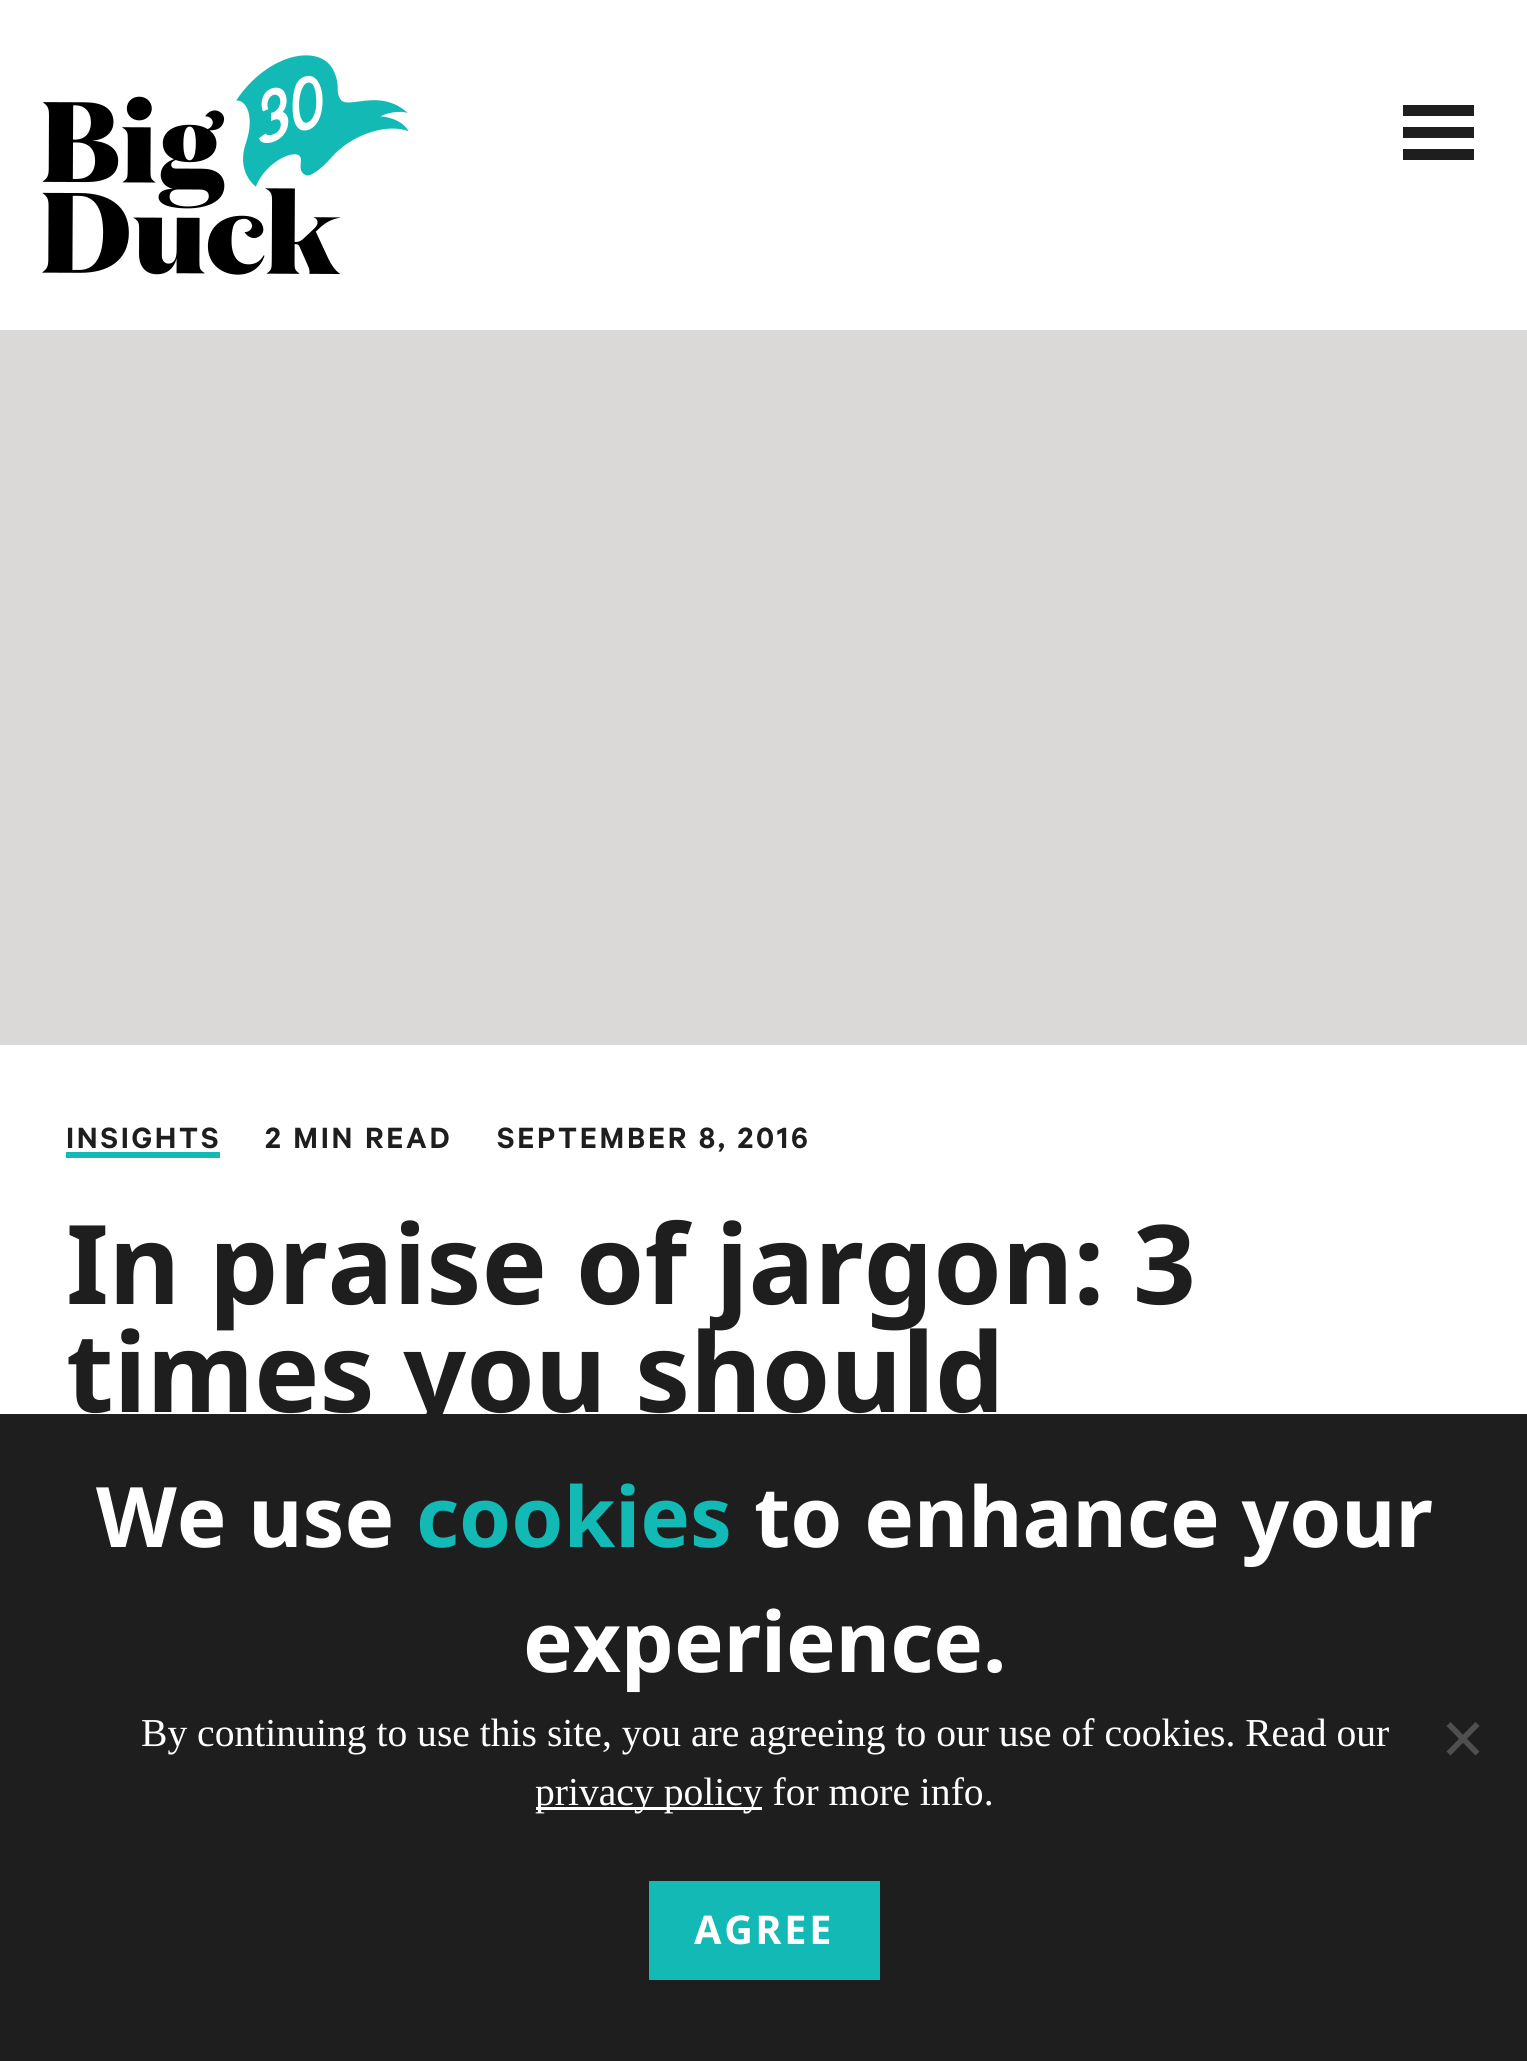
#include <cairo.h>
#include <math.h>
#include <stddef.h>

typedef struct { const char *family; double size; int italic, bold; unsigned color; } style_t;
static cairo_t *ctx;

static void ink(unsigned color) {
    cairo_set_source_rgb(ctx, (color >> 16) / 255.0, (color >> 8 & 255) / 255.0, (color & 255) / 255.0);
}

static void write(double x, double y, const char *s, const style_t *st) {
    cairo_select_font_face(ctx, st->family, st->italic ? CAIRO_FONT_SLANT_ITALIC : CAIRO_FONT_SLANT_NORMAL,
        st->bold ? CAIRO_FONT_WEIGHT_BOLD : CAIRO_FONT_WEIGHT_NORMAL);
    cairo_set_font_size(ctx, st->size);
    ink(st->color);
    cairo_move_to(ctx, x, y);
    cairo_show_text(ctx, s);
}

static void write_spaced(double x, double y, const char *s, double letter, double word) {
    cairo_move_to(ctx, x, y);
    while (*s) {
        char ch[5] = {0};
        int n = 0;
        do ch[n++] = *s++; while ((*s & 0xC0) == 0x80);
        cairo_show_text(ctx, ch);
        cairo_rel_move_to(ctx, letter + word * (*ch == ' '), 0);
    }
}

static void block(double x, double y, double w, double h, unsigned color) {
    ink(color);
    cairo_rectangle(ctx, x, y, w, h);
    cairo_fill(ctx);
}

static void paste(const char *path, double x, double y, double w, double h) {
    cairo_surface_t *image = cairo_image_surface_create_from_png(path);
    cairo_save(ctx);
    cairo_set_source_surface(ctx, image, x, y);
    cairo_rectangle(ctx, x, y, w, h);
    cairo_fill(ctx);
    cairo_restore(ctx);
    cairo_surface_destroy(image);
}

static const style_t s1 = {"Noto Sans", 110, 0, 1, 0x1e1e1e};
static const style_t s2 = {"Noto Sans", 83.5, 0, 1, 0xffffff};
static const style_t s3 = {"Noto Sans", 83.5, 0, 1, 0x13b9b4};
static const style_t s4 = {"Liberation Serif", 39.6, 0, 0, 0xffffff};

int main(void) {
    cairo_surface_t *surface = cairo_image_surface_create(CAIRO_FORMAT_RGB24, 1527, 2061);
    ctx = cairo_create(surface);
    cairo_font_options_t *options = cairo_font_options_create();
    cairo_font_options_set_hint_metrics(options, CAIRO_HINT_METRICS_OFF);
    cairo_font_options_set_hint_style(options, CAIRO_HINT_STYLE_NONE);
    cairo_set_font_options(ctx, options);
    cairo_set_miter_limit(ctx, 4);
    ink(0xdbd8d8);
    cairo_paint(ctx);
    block(0, 0, 1527, 330, 0xffffff);
    paste("pic1.png", 42, 55, 367, 220);
    block(1403, 149, 71, 11, 0x1e1e1e);
    block(1403, 105, 71, 11, 0x1e1e1e);
    block(1403, 127, 71, 11, 0x1e1e1e);
    block(0, 1045, 1527, 369, 0xffffff);
    block(66, 1152, 154, 6, 0x13b9b4);
    cairo_select_font_face(ctx, "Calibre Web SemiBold", CAIRO_FONT_SLANT_NORMAL, CAIRO_FONT_WEIGHT_NORMAL);
    cairo_set_font_size(ctx, 33);
    ink(0x1e1e1e);
    write_spaced(66, 1148, "INSIGHTS", 2.75, 0);
    write_spaced(265, 1148, "2 MIN READ", 2.75, 0);
    write_spaced(497, 1148, "SEPTEMBER 8, 2016", 2.75, 0);
    write(66, 1304, "In praise of jargon: 3", &s1);
    write(66, 1412, "times you should", &s1);
    block(0, 1414, 1527, 647, 0x1e1e1e);
    write(96, 1547, "We use", &s2);
    write(416, 1547, "cookies", &s3);
    write(754, 1547, "to enhance your", &s2);
    write(523, 1672, "experience.", &s2);
    write(141, 1746, "By continuing to use this site, you are agreeing to our use of cookies. Read our", &s4);
    block(536, 1807, 226, 3, 0xffffff);
    write(535, 1805, "privacy policy for more info.", &s4);
    ink(0x4f4f4f);
    cairo_new_path(ctx);
    cairo_move_to(ctx, 1475.5, 1722);
    cairo_line_to(ctx, 1479.5, 1726);
    cairo_line_to(ctx, 1450.5, 1755.5);
    cairo_line_to(ctx, 1446.5, 1751.5);
    cairo_close_path(ctx);
    cairo_fill(ctx);
    cairo_new_path(ctx);
    cairo_move_to(ctx, 1446.5, 1726);
    cairo_line_to(ctx, 1450.5, 1722);
    cairo_line_to(ctx, 1479.5, 1751.5);
    cairo_line_to(ctx, 1475.5, 1755.5);
    cairo_close_path(ctx);
    cairo_fill(ctx);
    block(649, 1881, 231, 99, 0x13b9b4);
    cairo_select_font_face(ctx, "Noto Sans", CAIRO_FONT_SLANT_NORMAL, CAIRO_FONT_WEIGHT_BOLD);
    ink(0xffffff);
    write_spaced(694, 1944, "AGREE", 2.75, 0);
    cairo_surface_write_to_png(surface, "screenshot.png");
    cairo_font_options_destroy(options);
    cairo_destroy(ctx);
    cairo_surface_destroy(surface);
    return 0;
}
